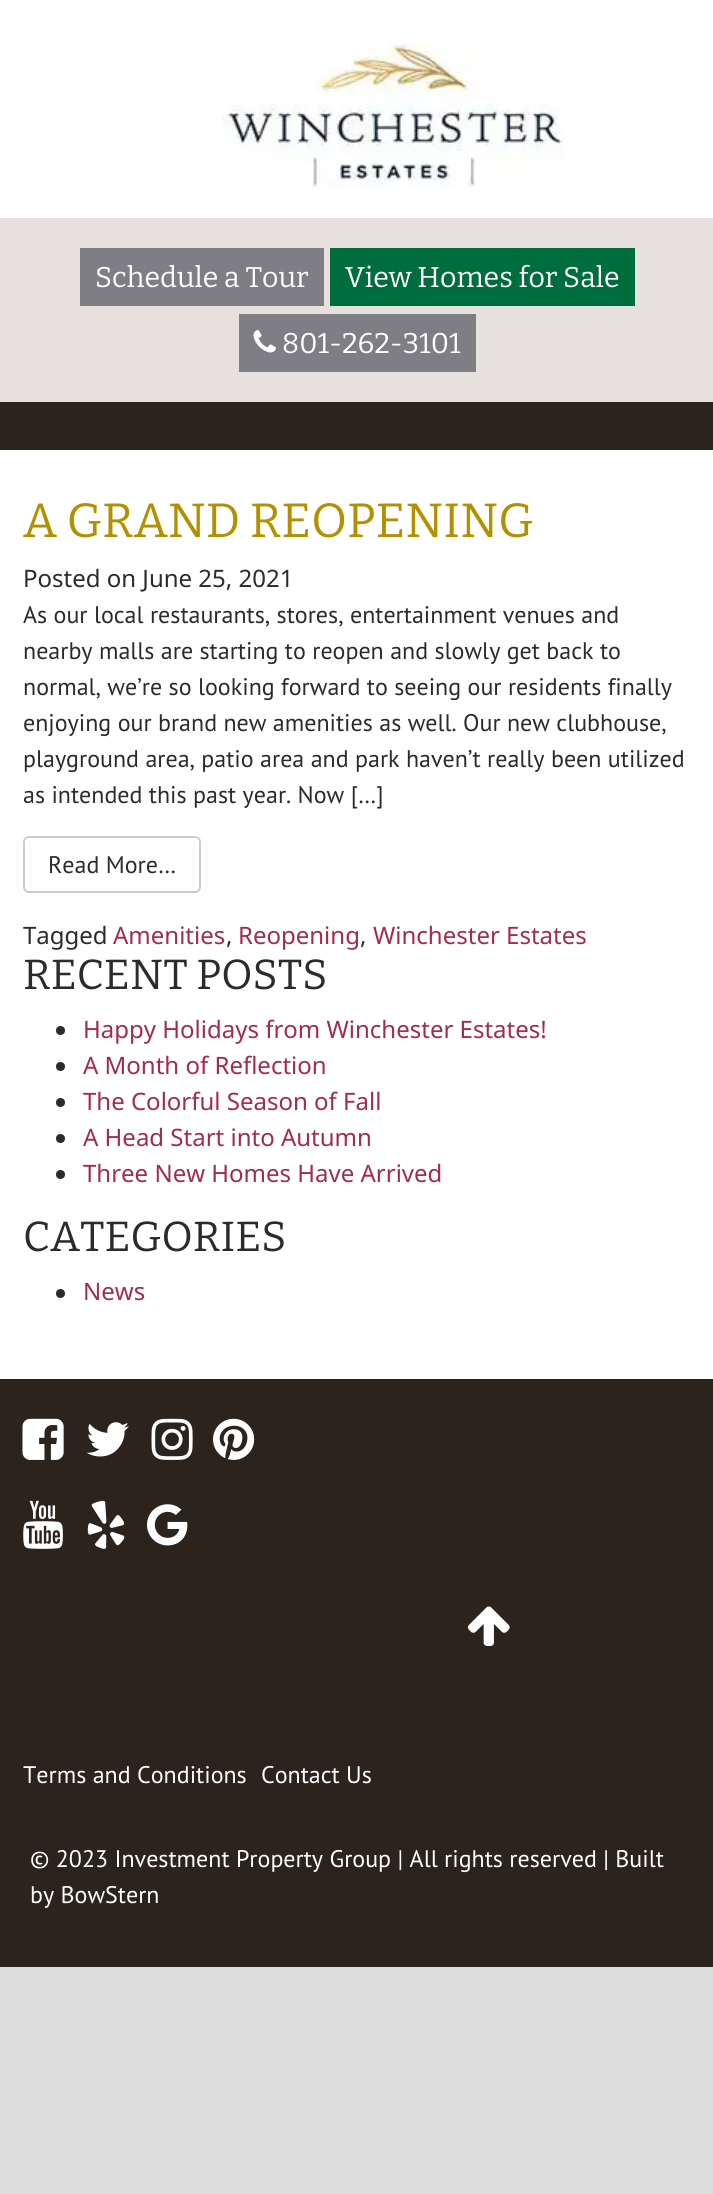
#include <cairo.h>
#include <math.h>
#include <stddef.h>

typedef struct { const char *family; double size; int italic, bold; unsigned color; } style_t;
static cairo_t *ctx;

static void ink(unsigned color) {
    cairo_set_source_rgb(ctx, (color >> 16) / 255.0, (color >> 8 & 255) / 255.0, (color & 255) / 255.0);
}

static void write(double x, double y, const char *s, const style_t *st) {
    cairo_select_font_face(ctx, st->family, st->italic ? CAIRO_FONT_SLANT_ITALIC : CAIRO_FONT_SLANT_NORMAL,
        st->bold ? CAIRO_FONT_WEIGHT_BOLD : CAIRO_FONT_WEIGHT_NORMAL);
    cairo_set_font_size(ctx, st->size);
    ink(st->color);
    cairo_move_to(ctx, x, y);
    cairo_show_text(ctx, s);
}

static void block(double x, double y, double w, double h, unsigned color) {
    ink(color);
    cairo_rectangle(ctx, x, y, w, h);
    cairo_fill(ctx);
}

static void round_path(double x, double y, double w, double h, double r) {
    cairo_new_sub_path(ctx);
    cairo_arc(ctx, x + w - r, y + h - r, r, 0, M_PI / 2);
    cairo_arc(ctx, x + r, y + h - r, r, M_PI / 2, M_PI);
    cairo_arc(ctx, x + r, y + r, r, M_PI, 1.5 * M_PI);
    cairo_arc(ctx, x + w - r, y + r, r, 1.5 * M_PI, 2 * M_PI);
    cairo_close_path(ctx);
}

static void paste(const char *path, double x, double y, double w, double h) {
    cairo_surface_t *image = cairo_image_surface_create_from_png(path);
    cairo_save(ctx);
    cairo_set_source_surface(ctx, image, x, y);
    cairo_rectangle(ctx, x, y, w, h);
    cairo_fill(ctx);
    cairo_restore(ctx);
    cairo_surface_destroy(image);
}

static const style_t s1 = {"Bitter Thin", 28.5, 0, 0, 0xffffff};
static const style_t s2 = {"Bitter Thin", 48, 0, 0, 0xb29000};
static const style_t s3 = {"Noto Sans", 24, 0, 0, 0x292b2c};
static const style_t s4 = {"PT Sans", 24, 0, 0, 0x292b2c};
static const style_t s5 = {"Noto Sans", 24, 0, 0, 0xa32b4b};
static const style_t s6 = {"Bitter Thin", 42, 0, 0, 0x292b2c};
static const style_t s7 = {"PT Sans", 24, 0, 0, 0xffffff};

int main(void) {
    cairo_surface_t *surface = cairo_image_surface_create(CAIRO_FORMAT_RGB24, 713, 2194);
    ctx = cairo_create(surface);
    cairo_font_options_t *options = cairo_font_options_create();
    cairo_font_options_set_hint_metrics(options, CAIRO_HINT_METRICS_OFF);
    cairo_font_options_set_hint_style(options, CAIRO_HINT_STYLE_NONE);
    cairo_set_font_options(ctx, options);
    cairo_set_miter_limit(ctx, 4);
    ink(0xdddddd);
    cairo_paint(ctx);
    block(0, 0, 713, 218, 0xffffff);
    paste("pic1.png", 222, 43, 343, 145);
    block(0, 218, 713, 184, 0xe6e1de);
    block(80, 248, 244, 58, 0x7f7e85);
    write(95, 287, "Schedule a Tour", &s1);
    block(330, 248, 305, 58, 0x006e3c);
    write(345, 287, "View Homes for Sale", &s1);
    block(239, 314, 237, 58, 0x7f7e85);
    paste("pic2.png", 253, 330, 23, 23);
    write(282, 353, "801-262-3101", &s1);
    block(0, 402, 713, 48, 0x2c231c);
    block(0, 450, 713, 929, 0xffffff);
    write(23, 537, "A GRAND REOPENING", &s2);
    write(23, 587, "Posted on June 25, 2021", &s3);
    write(23, 623, "As our local restaurants, stores, entertainment venues and", &s4);
    write(23, 659, "nearby malls are starting to reopen and slowly get back to", &s4);
    write(23, 695, "normal, we’re so looking forward to seeing our residents finally", &s4);
    write(23, 731, "enjoying our brand new amenities as well. Our new clubhouse,", &s4);
    write(23, 767, "playground area, patio area and park haven’t really been utilized", &s4);
    write(23, 803, "as intended this past year. Now […]", &s4);
    round_path(24, 837, 176, 55, 5);
    ink(0xcccccc);
    cairo_stroke(ctx);
    write(48, 873, "Read More…", &s4);
    write(23, 944, "Tagged", &s3);
    write(113, 944, "Amenities", &s5);
    write(226, 944, ",", &s3);
    write(238, 944, "Reopening", &s5);
    write(360, 944, ",", &s3);
    write(373, 944, "Winchester Estates", &s5);
    write(23, 989, "RECENT POSTS", &s6);
    cairo_new_path(ctx);
    cairo_arc(ctx, 60.5, 1030.5, 4.5, 0, 2 * M_PI);
    cairo_fill(ctx);
    write(83, 1038, "Happy Holidays from Winchester Estates!", &s5);
    ink(0x292b2c);
    cairo_new_path(ctx);
    cairo_arc(ctx, 60.5, 1066.5, 4.5, 0, 2 * M_PI);
    cairo_fill(ctx);
    write(83, 1074, "A Month of Reflection", &s5);
    ink(0x292b2c);
    cairo_new_path(ctx);
    cairo_arc(ctx, 60.5, 1102.5, 4.5, 0, 2 * M_PI);
    cairo_fill(ctx);
    write(83, 1110, "The Colorful Season of Fall", &s5);
    ink(0x292b2c);
    cairo_new_path(ctx);
    cairo_arc(ctx, 60.5, 1138.5, 4.5, 0, 2 * M_PI);
    cairo_fill(ctx);
    write(83, 1146, "A Head Start into Autumn", &s5);
    ink(0x292b2c);
    cairo_new_path(ctx);
    cairo_arc(ctx, 60.5, 1174.5, 4.5, 0, 2 * M_PI);
    cairo_fill(ctx);
    write(83, 1182, "Three New Homes Have Arrived", &s5);
    write(23, 1251, "CATEGORIES", &s6);
    cairo_new_path(ctx);
    cairo_arc(ctx, 60.5, 1293.5, 4.5, 0, 2 * M_PI);
    cairo_fill(ctx);
    write(83, 1300, "News", &s5);
    block(0, 1379, 713, 588, 0x2c231c);
    paste("pic3.png", 22, 1418, 42, 42);
    paste("pic4.png", 86, 1422, 43, 35);
    paste("pic5.png", 151, 1418, 42, 42);
    paste("pic6.png", 213, 1418, 42, 42);
    paste("pic7.png", 23, 1500, 40, 49);
    paste("pic8.png", 87, 1500, 38, 49);
    paste("pic9.png", 147, 1504, 41, 42);
    paste("pic10.png", 467, 1606, 43, 40);
    write(23, 1783, "Terms and Conditions", &s7);
    write(261, 1783, "Contact Us", &s7);
    write(30, 1867, "© 2023 Investment Property Group | All rights reserved | Built", &s7);
    write(30, 1903, "by BowStern", &s7);
    cairo_surface_write_to_png(surface, "screenshot.png");
    cairo_font_options_destroy(options);
    cairo_destroy(ctx);
    cairo_surface_destroy(surface);
    return 0;
}
